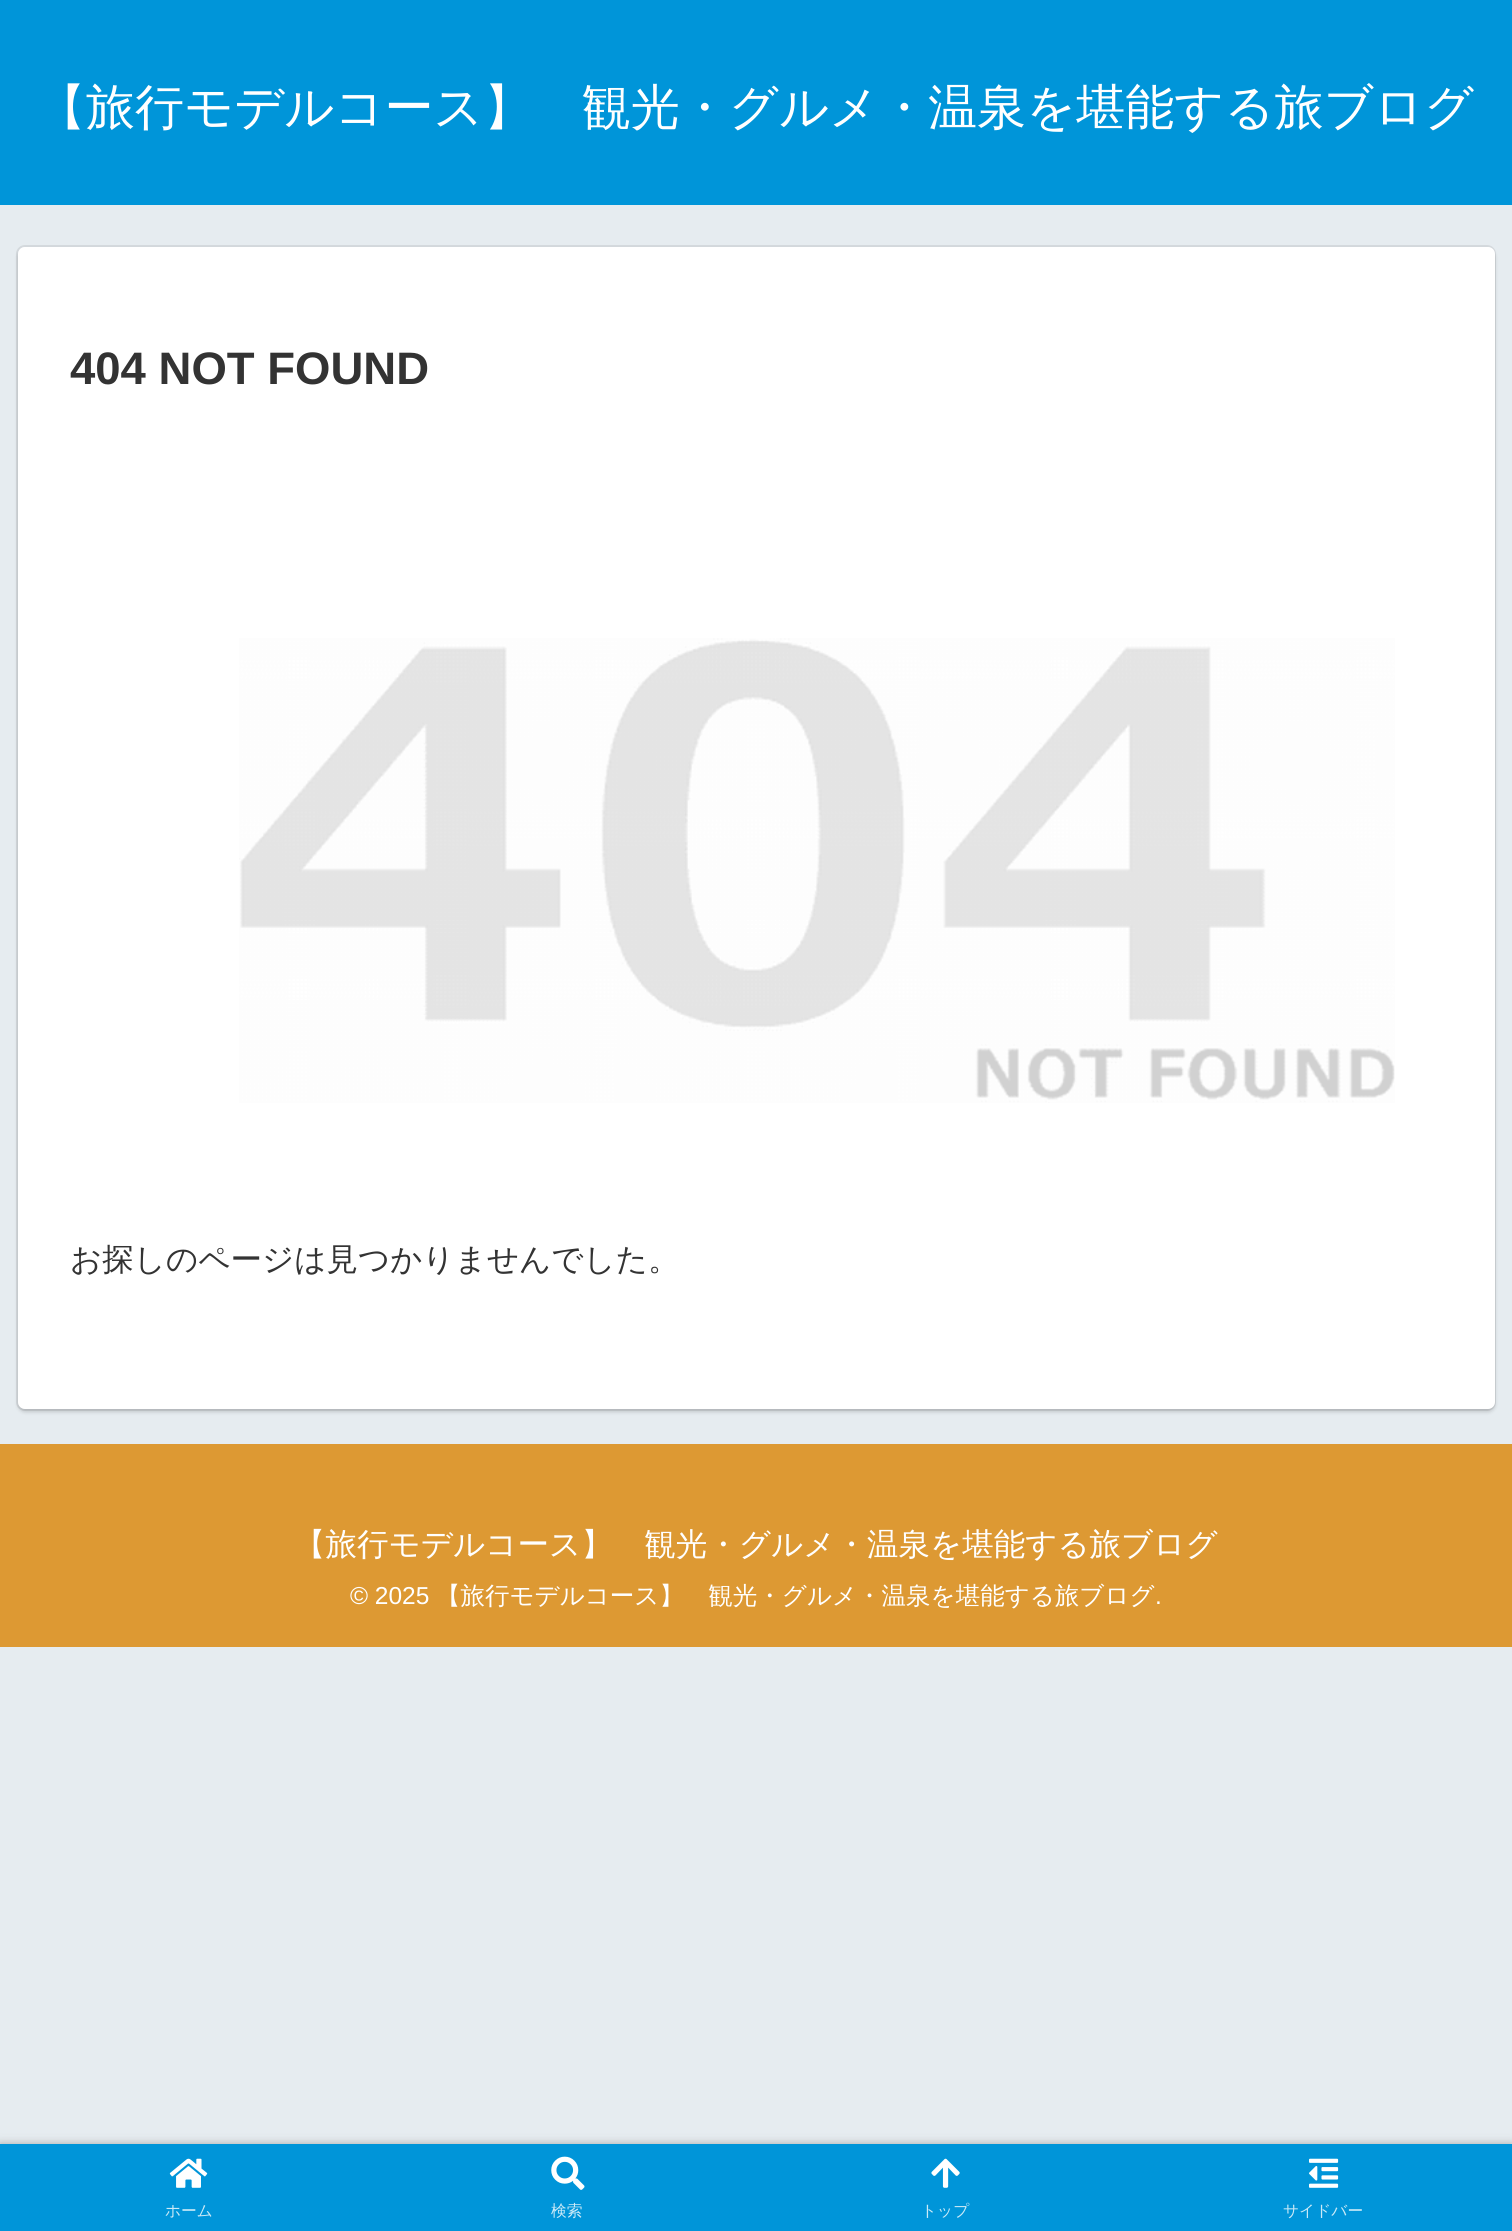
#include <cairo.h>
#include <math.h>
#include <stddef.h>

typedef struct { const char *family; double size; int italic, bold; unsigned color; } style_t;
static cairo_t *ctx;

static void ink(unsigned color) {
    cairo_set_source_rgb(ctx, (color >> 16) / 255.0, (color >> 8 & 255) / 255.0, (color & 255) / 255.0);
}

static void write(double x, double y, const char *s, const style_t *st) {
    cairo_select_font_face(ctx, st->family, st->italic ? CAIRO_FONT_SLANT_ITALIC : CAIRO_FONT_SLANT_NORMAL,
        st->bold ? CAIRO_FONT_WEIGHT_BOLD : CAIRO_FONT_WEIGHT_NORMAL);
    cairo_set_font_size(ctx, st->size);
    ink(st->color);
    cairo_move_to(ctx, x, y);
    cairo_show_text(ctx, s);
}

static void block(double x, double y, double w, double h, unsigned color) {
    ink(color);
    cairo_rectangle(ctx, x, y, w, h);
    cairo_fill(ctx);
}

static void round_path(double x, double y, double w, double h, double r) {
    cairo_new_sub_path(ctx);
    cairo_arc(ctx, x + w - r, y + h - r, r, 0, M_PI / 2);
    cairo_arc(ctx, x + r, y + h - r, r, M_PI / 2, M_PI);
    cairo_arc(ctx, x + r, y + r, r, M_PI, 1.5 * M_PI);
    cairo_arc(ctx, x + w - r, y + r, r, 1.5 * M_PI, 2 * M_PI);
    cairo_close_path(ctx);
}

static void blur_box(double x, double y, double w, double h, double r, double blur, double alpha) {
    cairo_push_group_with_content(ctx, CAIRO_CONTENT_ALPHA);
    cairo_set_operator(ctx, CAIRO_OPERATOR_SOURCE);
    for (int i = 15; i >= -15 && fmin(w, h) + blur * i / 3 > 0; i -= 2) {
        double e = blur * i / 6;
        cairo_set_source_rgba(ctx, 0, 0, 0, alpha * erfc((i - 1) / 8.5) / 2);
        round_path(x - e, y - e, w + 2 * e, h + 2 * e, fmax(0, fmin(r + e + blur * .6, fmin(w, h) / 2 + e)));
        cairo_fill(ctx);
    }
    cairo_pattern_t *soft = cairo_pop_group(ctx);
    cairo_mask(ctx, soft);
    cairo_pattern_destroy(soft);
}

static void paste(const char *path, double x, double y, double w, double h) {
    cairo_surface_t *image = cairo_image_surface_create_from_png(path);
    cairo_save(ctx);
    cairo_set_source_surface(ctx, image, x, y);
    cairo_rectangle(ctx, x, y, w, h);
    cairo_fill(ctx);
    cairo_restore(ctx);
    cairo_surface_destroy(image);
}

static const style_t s1 = {"WenQuanYi Zen Hei Medium", 49, 0, 0, 0xffffff};
static const style_t s2 = {"Liberation Sans", 45.5, 0, 1, 0x333333};
static const style_t s3 = {"WenQuanYi Zen Hei Medium", 31.5, 0, 0, 0x333333};
static const style_t s4 = {"WenQuanYi Zen Hei Medium", 31.5, 0, 0, 0xffffff};
static const style_t s5 = {"Liberation Sans", 24.5, 0, 0, 0xffffff};
static const style_t s6 = {"WenQuanYi Zen Hei Medium", 24.5, 0, 0, 0xffffff};
static const style_t s7 = {"WenQuanYi Zen Hei Medium", 15.75, 0, 0, 0xcceaf7};

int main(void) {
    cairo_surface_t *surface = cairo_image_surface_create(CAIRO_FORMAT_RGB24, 1512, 2231);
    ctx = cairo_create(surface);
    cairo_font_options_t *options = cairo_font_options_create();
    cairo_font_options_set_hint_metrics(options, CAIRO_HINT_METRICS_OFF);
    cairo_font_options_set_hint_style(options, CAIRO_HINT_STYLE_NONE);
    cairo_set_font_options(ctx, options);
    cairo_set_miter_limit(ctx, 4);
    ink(0xe6ecf0);
    cairo_paint(ctx);
    block(0, 0, 1512, 205, 0x0095d9);
    write(37, 124, "【旅行モデルコース】　観光・グルメ・温泉を堪能する旅ブログ", &s1);
    round_path(17, 246, 1478, 1164, 8);
    ink(0xd4d9dd);
    cairo_stroke(ctx);
    ink(0x000000);
    blur_box(18, 250, 1477, 1162, 7, 2, 0.16);
    ink(0xffffff);
    round_path(18, 247, 1477, 1162, 7);
    cairo_fill(ctx);
    write(70, 384, "404 NOT FOUND", &s2);
    paste("pic1.png", 239, 638, 1156, 465);
    write(70, 1270, "お探しのページは見つかりませんでした。", &s3);
    block(0, 1444, 1512, 203, 0xdd9933);
    write(294, 1555, "【旅行モデルコース】　観光・グルメ・温泉を堪能する旅ブログ", &s4);
    write(350, 1604, "© 2025", &s5);
    write(436, 1604, "【旅行モデルコース】　観光・グルメ・温泉を堪能する旅ブログ", &s6);
    write(1155, 1604, ".", &s5);
    ink(0xa9a9a9);
    blur_box(0, 2144, 1512, 87, 0, 4.5, 1);
    block(0, 2144, 1512, 87, 0x0095d9);
    paste("pic2.png", 169, 2158, 39, 30);
    write(165, 2216, "ホーム", &s7);
    paste("pic3.png", 551, 2156, 34, 34);
    write(551, 2216, "検索", &s7);
    paste("pic4.png", 931, 2158, 29, 30);
    write(921, 2216, "トップ", &s7);
    paste("pic5.png", 1309, 2158, 30, 30);
    write(1283, 2216, "サイドバー", &s7);
    cairo_surface_write_to_png(surface, "screenshot.png");
    cairo_font_options_destroy(options);
    cairo_destroy(ctx);
    cairo_surface_destroy(surface);
    return 0;
}
